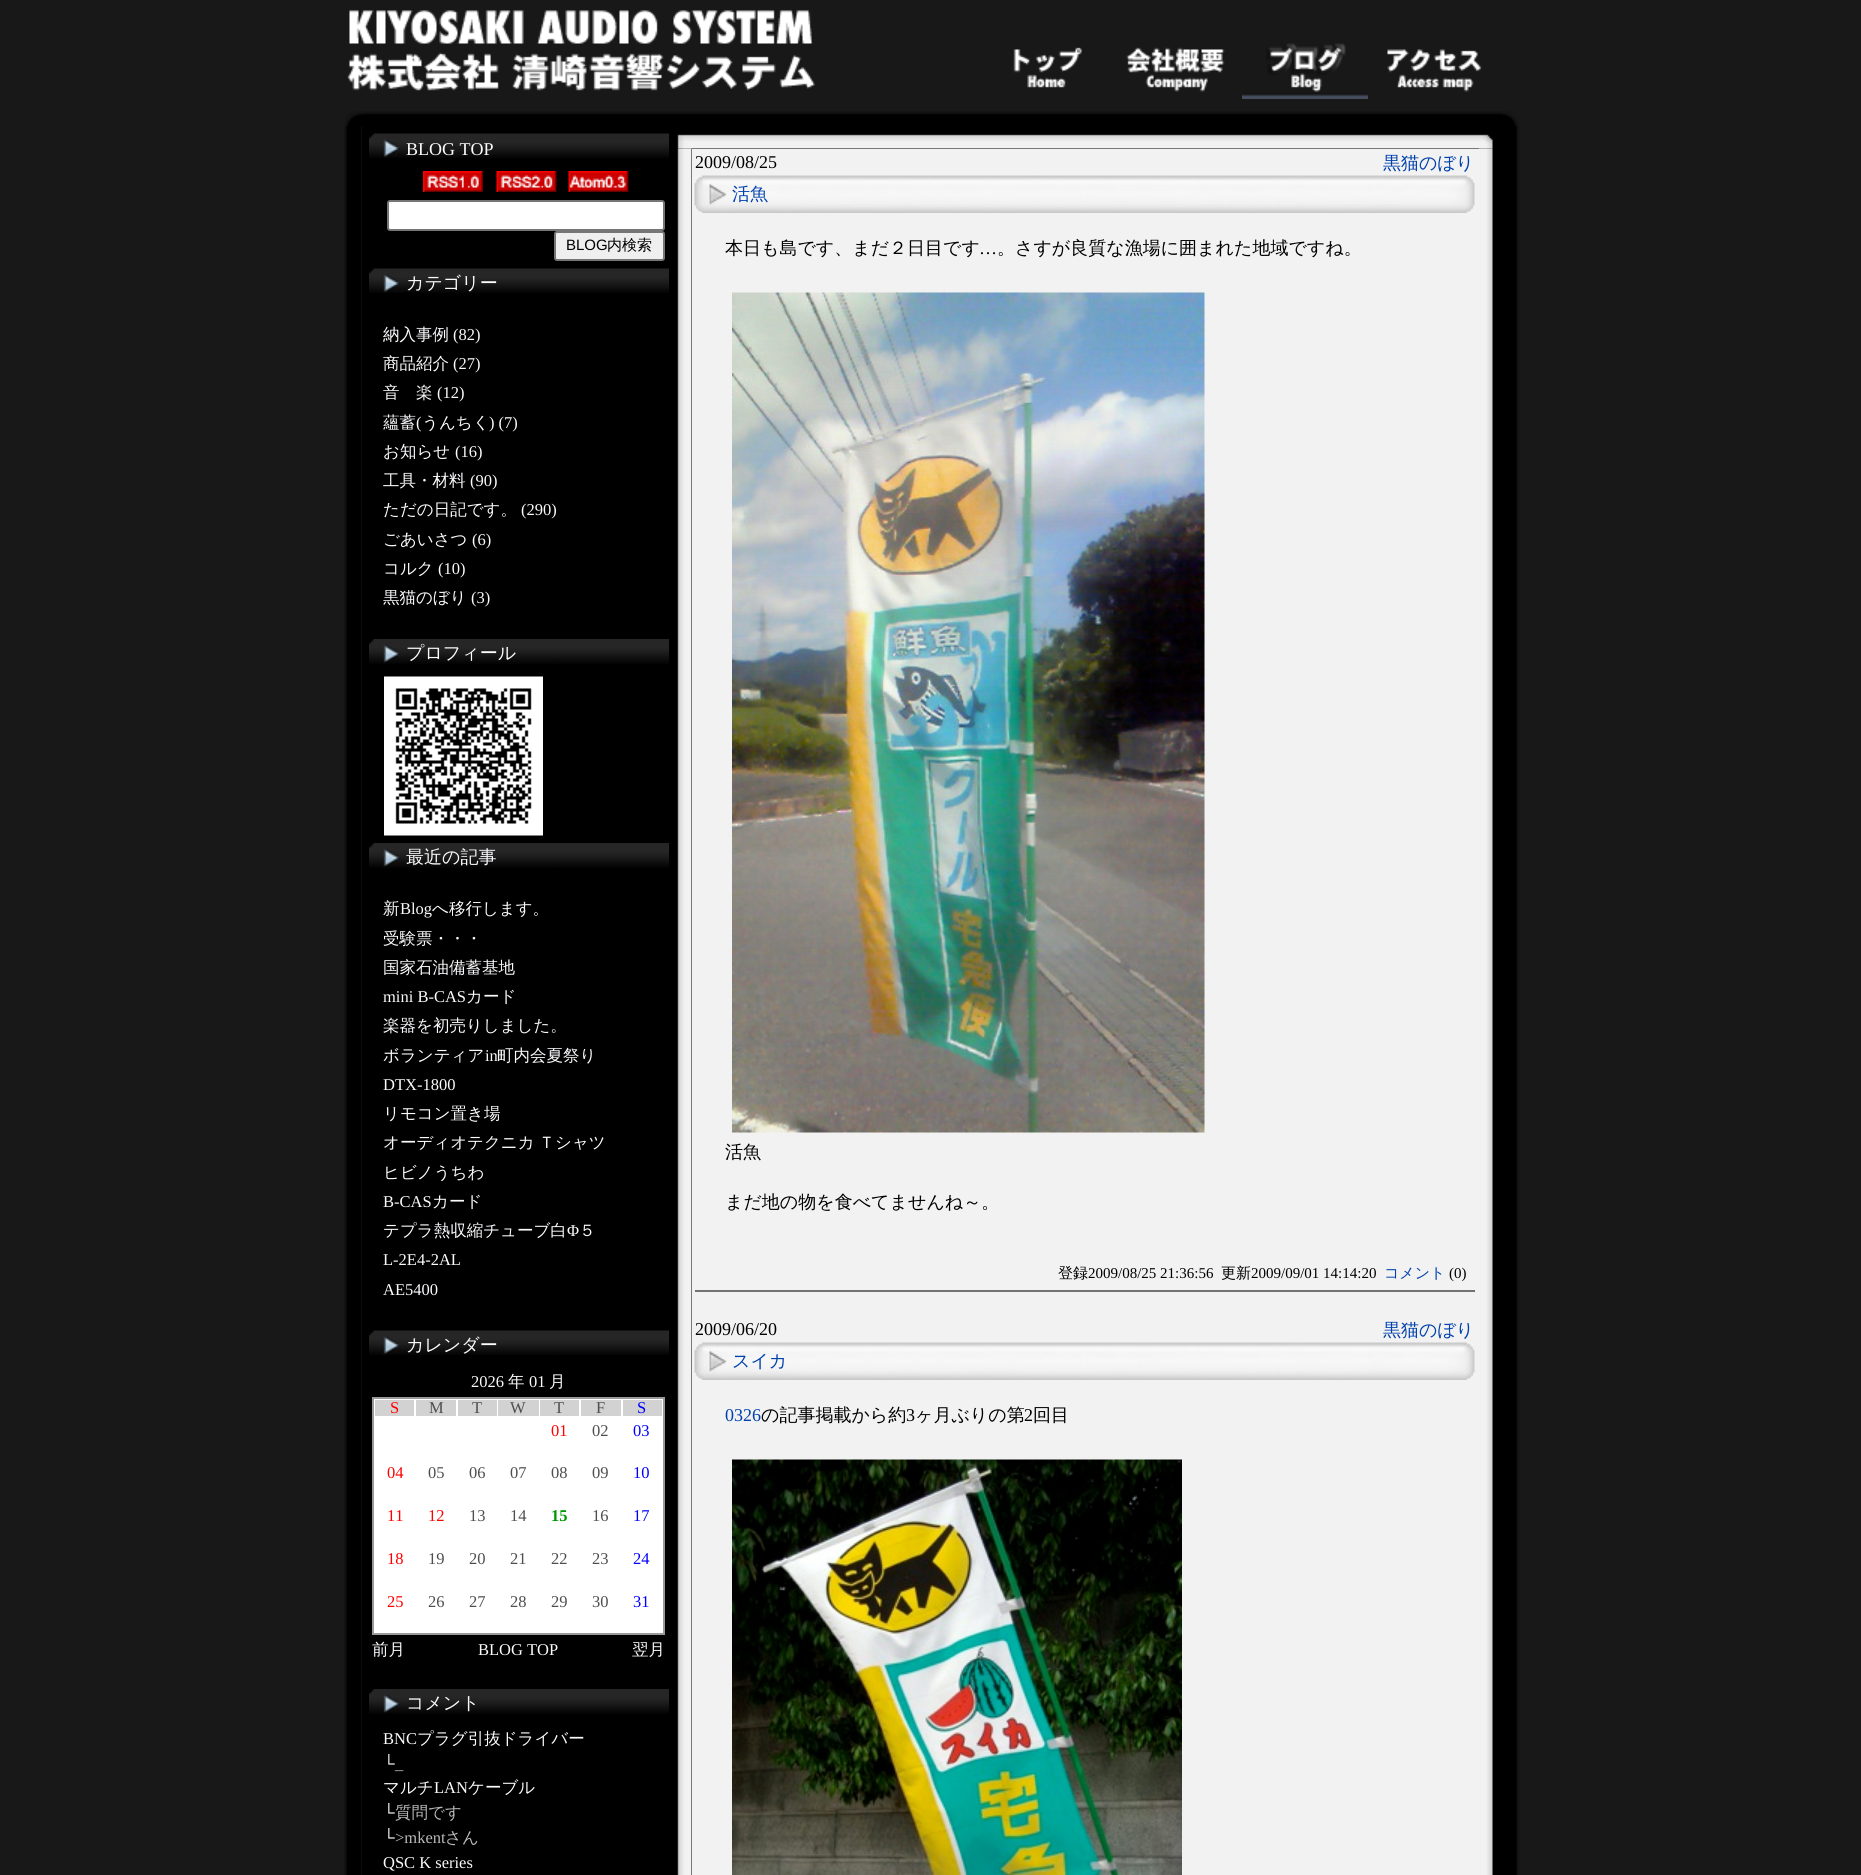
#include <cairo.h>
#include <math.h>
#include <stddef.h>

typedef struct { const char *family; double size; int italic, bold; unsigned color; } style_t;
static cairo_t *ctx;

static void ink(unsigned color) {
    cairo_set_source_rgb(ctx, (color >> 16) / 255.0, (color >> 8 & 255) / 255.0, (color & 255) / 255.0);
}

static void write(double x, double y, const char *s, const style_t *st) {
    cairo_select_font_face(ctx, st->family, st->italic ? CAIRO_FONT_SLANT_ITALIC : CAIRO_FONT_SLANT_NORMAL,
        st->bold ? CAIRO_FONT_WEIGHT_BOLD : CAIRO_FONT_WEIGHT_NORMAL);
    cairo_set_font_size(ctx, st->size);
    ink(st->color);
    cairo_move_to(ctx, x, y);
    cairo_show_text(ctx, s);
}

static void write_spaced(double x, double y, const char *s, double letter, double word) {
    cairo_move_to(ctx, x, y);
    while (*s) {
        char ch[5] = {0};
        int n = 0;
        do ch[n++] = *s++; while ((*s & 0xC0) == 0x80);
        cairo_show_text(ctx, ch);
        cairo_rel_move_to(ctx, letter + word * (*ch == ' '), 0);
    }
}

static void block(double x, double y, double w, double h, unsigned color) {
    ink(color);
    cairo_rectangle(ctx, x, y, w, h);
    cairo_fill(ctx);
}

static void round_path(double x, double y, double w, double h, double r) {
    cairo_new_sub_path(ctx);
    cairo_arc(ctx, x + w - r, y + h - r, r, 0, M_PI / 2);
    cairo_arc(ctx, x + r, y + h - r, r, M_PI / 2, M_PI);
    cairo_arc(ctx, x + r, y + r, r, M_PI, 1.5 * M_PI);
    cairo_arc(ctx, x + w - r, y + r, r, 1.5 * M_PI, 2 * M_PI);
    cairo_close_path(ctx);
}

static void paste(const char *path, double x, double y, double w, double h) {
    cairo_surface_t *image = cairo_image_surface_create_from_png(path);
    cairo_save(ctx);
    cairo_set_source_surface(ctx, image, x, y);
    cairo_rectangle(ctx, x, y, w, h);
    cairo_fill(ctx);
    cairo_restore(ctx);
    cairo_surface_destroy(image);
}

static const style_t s1 = {"Liberation Serif", 18, 0, 0, 0xfcfafd};
static const style_t s2 = {"Liberation Sans", 15, 0, 0, 0x000000};
static const style_t s3 = {"WenQuanYi Zen Hei Medium", 15, 0, 0, 0x000000};
static const style_t s4 = {"WenQuanYi Zen Hei Medium", 18, 0, 0, 0xfcfafd};
static const style_t s5 = {"WenQuanYi Zen Hei Medium", 16.5, 0, 0, 0xfcfafd};
static const style_t s6 = {"Liberation Serif", 16.5, 0, 0, 0xfcfafd};
static const style_t s7 = {"Liberation Serif", 16.5, 0, 0, 0xff0000};
static const style_t s8 = {"Liberation Serif", 16.5, 0, 0, 0x4e4e4e};
static const style_t s9 = {"Liberation Serif", 16.5, 0, 0, 0x0000ff};
static const style_t s10 = {"Liberation Serif", 16.5, 0, 1, 0x009900};
static const style_t s11 = {"Liberation Serif", 16.5, 0, 0, 0xb9b9b9};
static const style_t s12 = {"WenQuanYi Zen Hei Medium", 16.5, 0, 0, 0xb9b9b9};
static const style_t s13 = {"Liberation Serif", 18, 0, 0, 0x000000};
static const style_t s14 = {"WenQuanYi Zen Hei Medium", 18, 0, 0, 0x0041ad};
static const style_t s15 = {"WenQuanYi Zen Hei Medium", 18, 0, 0, 0x000000};
static const style_t s16 = {"Liberation Serif", 15, 0, 0, 0x000000};
static const style_t s17 = {"WenQuanYi Zen Hei Medium", 15, 0, 0, 0x0041ad};
static const style_t s18 = {"Liberation Serif", 18, 0, 0, 0x0041ad};

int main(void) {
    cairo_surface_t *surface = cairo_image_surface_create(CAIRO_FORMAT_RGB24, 1861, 1875);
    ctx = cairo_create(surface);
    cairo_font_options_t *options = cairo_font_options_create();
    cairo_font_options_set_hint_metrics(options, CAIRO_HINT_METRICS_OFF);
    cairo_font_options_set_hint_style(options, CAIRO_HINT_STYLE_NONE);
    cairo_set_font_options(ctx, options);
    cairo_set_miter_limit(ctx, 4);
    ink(0x181819);
    cairo_paint(ctx);
    paste("pic1.png", 347, 10, 468, 81);
    paste("pic2.png", 1013, 47, 69, 41);
    paste("pic3.png", 1126, 47, 99, 45);
    paste("pic4.png", 1242, 43, 126, 56);
    paste("pic5.png", 1387, 49, 95, 43);
    paste("pic6.png", 345, 111, 1173, 15);
    paste("pic7.png", 344, 126, 18, 1749);
    block(362, 126, 1140, 1749, 0x000000);
    paste("pic8.png", 369, 133, 300, 25);
    write(406, 155, "BLOG TOP", &s1);
    paste("pic9.png", 423, 171, 60, 21);
    paste("pic10.png", 496, 171, 61, 21);
    paste("pic11.png", 568, 171, 61, 21);
    ink(0xffffff);
    round_path(388, 201, 276, 29, 2);
    cairo_fill_preserve(ctx);
    ink(0x767676);
    cairo_stroke(ctx);
    ink(0xefefef);
    round_path(555, 232, 109, 28, 2);
    cairo_fill_preserve(ctx);
    ink(0x767676);
    cairo_stroke(ctx);
    write(566, 250, "BLOG", &s2);
    write(607, 250, "内検索", &s3);
    paste("pic8.png", 369, 268, 300, 25);
    write(406, 289, "カテゴリー", &s4);
    write(383, 340, "納入事例", &s5);
    write(453, 340, "(82)", &s6);
    write(383, 369, "商品紹介", &s5);
    write(453, 369, "(27)", &s6);
    write(383, 398, "音　楽", &s5);
    write(437, 398, "(12)", &s6);
    write(383, 428, "蘊蓄", &s5);
    write(416, 428, "(", &s6);
    write(422, 428, "うんちく", &s5);
    write(489, 428, ") (7)", &s6);
    write(383, 457, "お知らせ", &s5);
    write(455, 457, "(16)", &s6);
    write(383, 486, "工具・材料", &s5);
    write(470, 486, "(90)", &s6);
    write(383, 515, "ただの日記です。", &s5);
    write(521, 515, "(290)", &s6);
    write(383, 545, "ごあいさつ", &s5);
    write(472, 545, "(6)", &s6);
    write(383, 574, "コルク", &s5);
    write(438, 574, "(10)", &s6);
    write(383, 603, "黒猫のぼり", &s5);
    write(471, 603, "(3)", &s6);
    paste("pic12.png", 369, 639, 300, 25);
    write(406, 659, "プロフィール", &s4);
    paste("pic13.png", 384, 676, 159, 160);
    paste("pic12.png", 369, 843, 300, 25);
    write(406, 863, "最近の記事", &s4);
    write(383, 914, "新", &s5);
    write(400, 914, "Blog", &s6);
    write(432, 914, "へ移行します。", &s5);
    write(383, 944, "受験票・・・", &s5);
    write(383, 973, "国家石油備蓄基地", &s5);
    write(383, 1002, "mini B-CAS", &s6);
    write(466, 1002, "カード", &s5);
    write(383, 1031, "楽器を初売りしました。", &s5);
    write(383, 1061, "ボランティア", &s5);
    write(485, 1061, "in", &s6);
    write(497, 1061, "町内会夏祭り", &s5);
    write(383, 1090, "DTX-1800", &s6);
    write(383, 1119, "リモコン置き場", &s5);
    write_spaced(383, 1148, "オーディオテクニカ Ｔシャツ", 0, -1);
    write(383, 1178, "ヒビノうちわ", &s5);
    write(383, 1207, "B-CAS", &s6);
    write(432, 1207, "カード", &s5);
    write(383, 1236, "テプラ熱収縮チューブ白", &s5);
    write(567, 1236, "Φ", &s6);
    write(579, 1236, "５", &s5);
    write(383, 1265, "L-2E4-2AL", &s6);
    write(383, 1295, "AE5400", &s6);
    paste("pic8.png", 369, 1330, 300, 25);
    write(406, 1351, "カレンダー", &s4);
    write(471, 1387, "2026", &s6);
    write(508, 1387, "年", &s5);
    write(529, 1387, "01", &s6);
    write(549, 1387, "月", &s5);
    ink(0xffffff);
    cairo_rectangle(ctx, 373, 1398, 291, 236);
    cairo_fill_preserve(ctx);
    ink(0x999999);
    cairo_stroke(ctx);
    block(375, 1400, 39, 16, 0xd2d2d2);
    write(390, 1413, "S", &s7);
    block(416, 1400, 40, 16, 0xd2d2d2);
    write(429, 1413, "M", &s8);
    block(458, 1400, 39, 16, 0xd2d2d2);
    write(472, 1413, "T", &s8);
    block(498, 1400, 41, 16, 0xd2d2d2);
    write(510, 1413, "W", &s8);
    block(540, 1400, 39, 16, 0xd2d2d2);
    write(554, 1413, "T", &s8);
    block(581, 1400, 40, 16, 0xd2d2d2);
    write(596, 1413, "F", &s8);
    block(623, 1400, 39, 16, 0xd2d2d2);
    write(637, 1413, "S", &s9);
    write(551, 1436, "01", &s7);
    write(592, 1436, "02", &s8);
    write(633, 1436, "03", &s9);
    write(387, 1478, "04", &s7);
    write(428, 1478, "05", &s8);
    write(469, 1478, "06", &s8);
    write(510, 1478, "07", &s8);
    write(551, 1478, "08", &s8);
    write(592, 1478, "09", &s8);
    write(633, 1478, "10", &s9);
    write(387, 1521, "11", &s7);
    write(428, 1521, "12", &s7);
    write(469, 1521, "13", &s8);
    write(510, 1521, "14", &s8);
    write(551, 1521, "15", &s10);
    write(592, 1521, "16", &s8);
    write(633, 1521, "17", &s9);
    write(387, 1564, "18", &s7);
    write(428, 1564, "19", &s8);
    write(469, 1564, "20", &s8);
    write(510, 1564, "21", &s8);
    write(551, 1564, "22", &s8);
    write(592, 1564, "23", &s8);
    write(633, 1564, "24", &s9);
    write(387, 1607, "25", &s7);
    write(428, 1607, "26", &s8);
    write(469, 1607, "27", &s8);
    write(510, 1607, "28", &s8);
    write(551, 1607, "29", &s8);
    write(592, 1607, "30", &s8);
    write(633, 1607, "31", &s9);
    write(372, 1655, "前月", &s5);
    write(478, 1655, "BLOG TOP", &s6);
    write(632, 1655, "翌月", &s5);
    paste("pic12.png", 369, 1689, 300, 25);
    write(406, 1709, "コメント", &s4);
    write(383, 1744, "BNC", &s6);
    write(417, 1744, "プラグ引抜ドライバー", &s5);
    write(383, 1769, "└", &s6);
    write(395, 1769, "_", &s11);
    write(383, 1793, "マルチ", &s5);
    write(434, 1793, "LAN", &s6);
    write(468, 1793, "ケーブル", &s5);
    write(383, 1818, "└", &s6);
    write(395, 1818, "質問です", &s12);
    write(383, 1843, "└", &s6);
    write(395, 1843, ">mkent", &s11);
    write(445, 1843, "さん", &s12);
    write(383, 1868, "QSC K series", &s6);
    block(692, 149, 787, 1726, 0xf2f2f2);
    paste("pic14.png", 677, 134, 816, 15);
    paste("pic15.png", 677, 148, 15, 1727);
    write(695, 168, "2009/08/25", &s13);
    write(1383, 169, "黒猫のぼり", &s14);
    paste("pic16.png", 694, 175, 781, 38);
    write(732, 200, "活魚", &s14);
    write(725, 254, "本日も島です、まだ２日目です", &s15);
    write(979, 254, "…", &s13);
    write(997, 254, "。さすが良質な漁場に囲まれた地域ですね。", &s15);
    paste("pic17.png", 732, 292, 473, 841);
    write(725, 1158, "活魚", &s15);
    write(725, 1208, "まだ地の物を食べてませんね～。", &s15);
    block(695, 1290, 780, 2, 0x737373);
    write(1058, 1278, "登録", &s3);
    write(1088, 1278, "2009/08/25 21:36:56", &s16);
    write(1221, 1278, "更新", &s3);
    write(1251, 1278, "2009/09/01 14:14:20", &s16);
    write(1384, 1278, "コメント", &s17);
    write(1449, 1278, "(0)", &s16);
    write(695, 1335, "2009/06/20", &s13);
    write(1383, 1336, "黒猫のぼり", &s14);
    paste("pic16.png", 694, 1342, 781, 38);
    write(732, 1367, "スイカ", &s14);
    write(725, 1421, "0326", &s18);
    write(761, 1421, "の記事掲載から約", &s15);
    write(906, 1421, "3", &s13);
    write(915, 1421, "ヶ月ぶりの第", &s15);
    write(1024, 1421, "2", &s13);
    write(1033, 1421, "回目", &s15);
    paste("pic18.png", 732, 1459, 450, 416);
    paste("pic19.png", 1479, 148, 14, 1727);
    paste("pic20.png", 1502, 126, 17, 1749);
    cairo_surface_write_to_png(surface, "screenshot.png");
    cairo_font_options_destroy(options);
    cairo_destroy(ctx);
    cairo_surface_destroy(surface);
    return 0;
}
